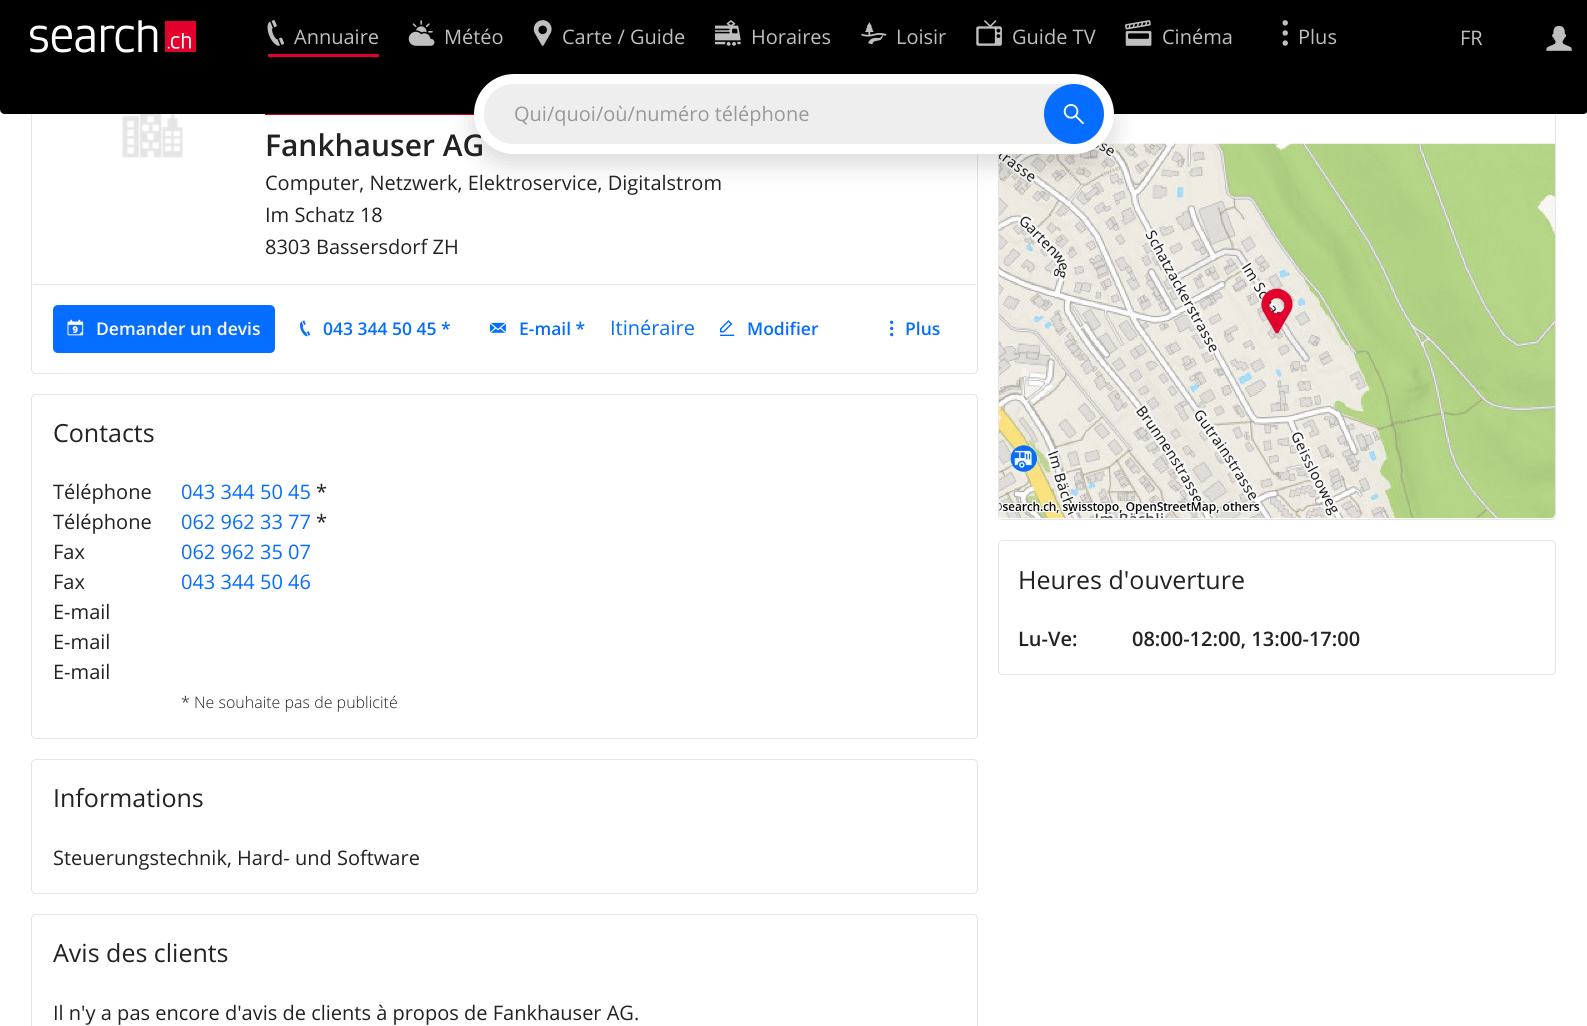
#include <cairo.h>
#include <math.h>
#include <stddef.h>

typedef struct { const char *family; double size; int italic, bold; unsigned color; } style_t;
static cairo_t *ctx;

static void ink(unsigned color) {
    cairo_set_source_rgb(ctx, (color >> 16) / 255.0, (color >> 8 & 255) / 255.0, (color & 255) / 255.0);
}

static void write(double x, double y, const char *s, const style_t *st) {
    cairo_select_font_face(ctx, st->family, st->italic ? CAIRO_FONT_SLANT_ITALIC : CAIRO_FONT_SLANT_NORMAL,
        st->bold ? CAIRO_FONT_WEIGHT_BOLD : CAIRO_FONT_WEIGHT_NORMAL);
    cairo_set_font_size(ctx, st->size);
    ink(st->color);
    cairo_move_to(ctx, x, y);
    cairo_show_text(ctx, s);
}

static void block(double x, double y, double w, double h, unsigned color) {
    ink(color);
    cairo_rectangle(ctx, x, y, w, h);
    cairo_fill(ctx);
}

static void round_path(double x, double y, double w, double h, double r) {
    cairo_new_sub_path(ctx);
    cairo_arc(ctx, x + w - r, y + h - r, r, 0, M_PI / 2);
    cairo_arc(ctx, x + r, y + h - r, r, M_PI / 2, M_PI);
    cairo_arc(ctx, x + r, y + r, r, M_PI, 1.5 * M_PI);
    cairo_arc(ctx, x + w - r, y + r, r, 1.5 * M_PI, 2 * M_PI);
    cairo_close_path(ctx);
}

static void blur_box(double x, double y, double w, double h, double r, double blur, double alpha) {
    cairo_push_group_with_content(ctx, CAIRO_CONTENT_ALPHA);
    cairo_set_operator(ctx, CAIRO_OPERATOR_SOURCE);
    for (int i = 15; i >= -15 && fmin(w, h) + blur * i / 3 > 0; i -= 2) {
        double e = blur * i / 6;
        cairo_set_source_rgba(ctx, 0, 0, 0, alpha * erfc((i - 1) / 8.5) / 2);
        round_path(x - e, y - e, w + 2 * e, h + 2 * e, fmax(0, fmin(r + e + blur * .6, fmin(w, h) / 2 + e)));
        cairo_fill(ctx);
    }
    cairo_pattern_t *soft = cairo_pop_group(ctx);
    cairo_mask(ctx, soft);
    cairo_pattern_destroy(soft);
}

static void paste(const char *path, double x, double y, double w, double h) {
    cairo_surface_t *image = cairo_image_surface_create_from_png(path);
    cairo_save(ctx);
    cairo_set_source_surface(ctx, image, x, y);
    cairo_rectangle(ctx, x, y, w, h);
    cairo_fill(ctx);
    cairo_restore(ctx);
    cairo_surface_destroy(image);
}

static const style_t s1 = {"Open Sans", 20, 0, 0, 0xbfbfbf};
static const style_t s2 = {"Open Sans SemiBold", 30, 0, 0, 0x222222};
static const style_t s3 = {"Open Sans", 20, 0, 0, 0x999999};
static const style_t s4 = {"Open Sans", 20, 0, 0, 0x222222};
static const style_t s5 = {"Open Sans SemiBold", 17.5, 0, 0, 0xffffff};
static const style_t s6 = {"Open Sans SemiBold", 17.5, 0, 0, 0x056dff};
static const style_t s7 = {"Open Sans", 20, 0, 0, 0x056dff};
static const style_t s8 = {"Open Sans", 25, 0, 0, 0x222222};
static const style_t s9 = {"Open Sans Light", 16, 0, 0, 0x222222};
static const style_t s10 = {"Open Sans SemiBold", 20, 0, 0, 0x222222};

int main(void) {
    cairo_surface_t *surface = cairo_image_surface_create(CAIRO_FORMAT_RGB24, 1587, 1026);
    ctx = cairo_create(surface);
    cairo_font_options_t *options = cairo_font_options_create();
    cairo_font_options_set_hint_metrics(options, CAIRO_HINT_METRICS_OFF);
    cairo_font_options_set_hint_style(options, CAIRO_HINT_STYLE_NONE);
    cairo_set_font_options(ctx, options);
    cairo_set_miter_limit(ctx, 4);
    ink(0xffffff);
    cairo_paint(ctx);
    round_path(31.5, 65.5, 946, 308, 4.5);
    ink(0xe5e5e5);
    cairo_set_line_width(ctx, 1);
    cairo_stroke(ctx);
    round_path(998.5, 65.5, 557, 454, 4.5);
    cairo_stroke(ctx);
    block(0, 0, 1587, 74, 0x000000);
    paste("pic1.png", 30, 20, 166, 33);
    block(268, 54, 111, 3, 0xe4002c);
    paste("pic2.png", 267, 20, 17, 26);
    write(294, 44, "Annuaire", &s1);
    paste("pic3.png", 408, 20, 27, 26);
    write(444, 44, "Météo", &s1);
    paste("pic4.png", 533, 20, 19, 26);
    write(562, 44, "Carte / Guide", &s1);
    paste("pic5.png", 715, 20, 26, 26);
    write(751, 44, "Horaires", &s1);
    paste("pic6.png", 861, 22, 26, 23);
    write(896, 44, "Loisir", &s1);
    paste("pic7.png", 976, 20, 26, 26);
    write(1012, 44, "Guide TV", &s1);
    paste("pic8.png", 1125, 20, 27, 26);
    write(1162, 44, "Cinéma", &s1);
    paste("pic9.png", 1282, 20, 6, 26);
    write(1298, 44, "Plus", &s1);
    write(1460, 45, "FR", &s1);
    paste("pic10.png", 1546, 26, 26, 25);
    ink(0x000000);
    cairo_new_path(ctx);
    cairo_move_to(ctx, 0, 74);
    cairo_line_to(ctx, 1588, 74);
    cairo_line_to(ctx, 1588, 109);
    cairo_curve_to(ctx, 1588, 112, 1586, 114, 1583, 114);
    cairo_line_to(ctx, 5, 114);
    cairo_curve_to(ctx, 2, 114, 0, 112, 0, 109);
    cairo_close_path(ctx);
    cairo_fill(ctx);
    block(265, 114, 210, 1, 0xd10019);
    paste("pic18.png", 999, 143, 556, 376);
    ink(0x000000);
    blur_box(474, 84, 640, 80, 40, 12.5, 0.15);
    write(265, 156, "Fankhauser AG", &s2);
    ink(0xffffff);
    round_path(474, 74, 640, 80, 40);
    cairo_fill(ctx);
    ink(0xeeeeee);
    round_path(484, 84, 620, 60, 30);
    cairo_fill(ctx);
    round_path(484, 84, 560, 60, 30);
    cairo_fill(ctx);
    write(514, 121, "Qui/quoi/où/numéro téléphone", &s3);
    ink(0x056dff);
    cairo_new_path(ctx);
    cairo_arc(ctx, 1074, 114, 30, 0, 2 * M_PI);
    cairo_fill(ctx);
    paste("pic11.png", 1063, 104, 21, 20);
    paste("pic12.png", 122, 114, 61, 44);
    write(265, 190, "Computer, Netzwerk, Elektroservice, Digitalstrom", &s4);
    write(265, 222, "Im Schatz 18", &s4);
    write(265, 254, "8303 Bassersdorf ZH", &s4);
    block(33, 284, 943, 1, 0xe6e6e6);
    ink(0x056dff);
    round_path(53, 305, 222, 48, 5);
    cairo_fill(ctx);
    paste("pic13.png", 67, 319, 17, 17);
    write(96, 335, "Demander un devis", &s5);
    paste("pic14.png", 300, 320, 10, 17);
    write(323, 335, "043 344 50 45 *", &s6);
    paste("pic15.png", 490, 322, 16, 11);
    write(519, 335, "E-mail *", &s6);
    write(610, 335, "Itinéraire", &s7);
    paste("pic16.png", 720, 320, 15, 16);
    write(747, 335, "Modifier", &s6);
    paste("pic17.png", 890, 320, 4, 17);
    write(905, 335, "Plus", &s6);
    round_path(31.5, 394.5, 946, 344, 4.5);
    ink(0xe5e5e5);
    cairo_stroke(ctx);
    write(53, 442, "Contacts", &s8);
    write(53, 499, "Téléphone", &s4);
    write(181, 499, "043 344 50 45", &s7);
    write(316, 499, "*", &s4);
    write(53, 529, "Téléphone", &s4);
    write(181, 529, "062 962 33 77", &s7);
    write(316, 529, "*", &s4);
    write(53, 559, "Fax", &s4);
    write(181, 559, "062 962 35 07", &s7);
    write(53, 589, "Fax", &s4);
    write(181, 589, "043 344 50 46", &s7);
    write(53, 619, "E-mail", &s4);
    write(53, 649, "E-mail", &s4);
    write(53, 679, "E-mail", &s4);
    write(181, 708, "* Ne souhaite pas de publicité", &s9);
    round_path(31.5, 759.5, 946, 134, 4.5);
    ink(0xe5e5e5);
    cairo_stroke(ctx);
    write(53, 807, "Informations", &s8);
    write(53, 865, "Steuerungstechnik, Hard- und Software", &s4);
    round_path(31.5, 914.5, 946, 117, 4.5);
    ink(0xe5e5e5);
    cairo_stroke(ctx);
    write(53, 962, "Avis des clients", &s8);
    write(53, 1020, "Il n'y a pas encore d'avis de clients à propos de Fankhauser AG.", &s4);
    round_path(998.5, 540.5, 557, 134, 4.5);
    ink(0xe5e5e5);
    cairo_stroke(ctx);
    write(1018, 589, "Heures d'ouverture", &s8);
    write(1018, 646, "Lu-Ve:", &s10);
    write(1132, 646, "08:00-12:00, 13:00-17:00", &s10);
    cairo_surface_write_to_png(surface, "screenshot.png");
    cairo_font_options_destroy(options);
    cairo_destroy(ctx);
    cairo_surface_destroy(surface);
    return 0;
}
